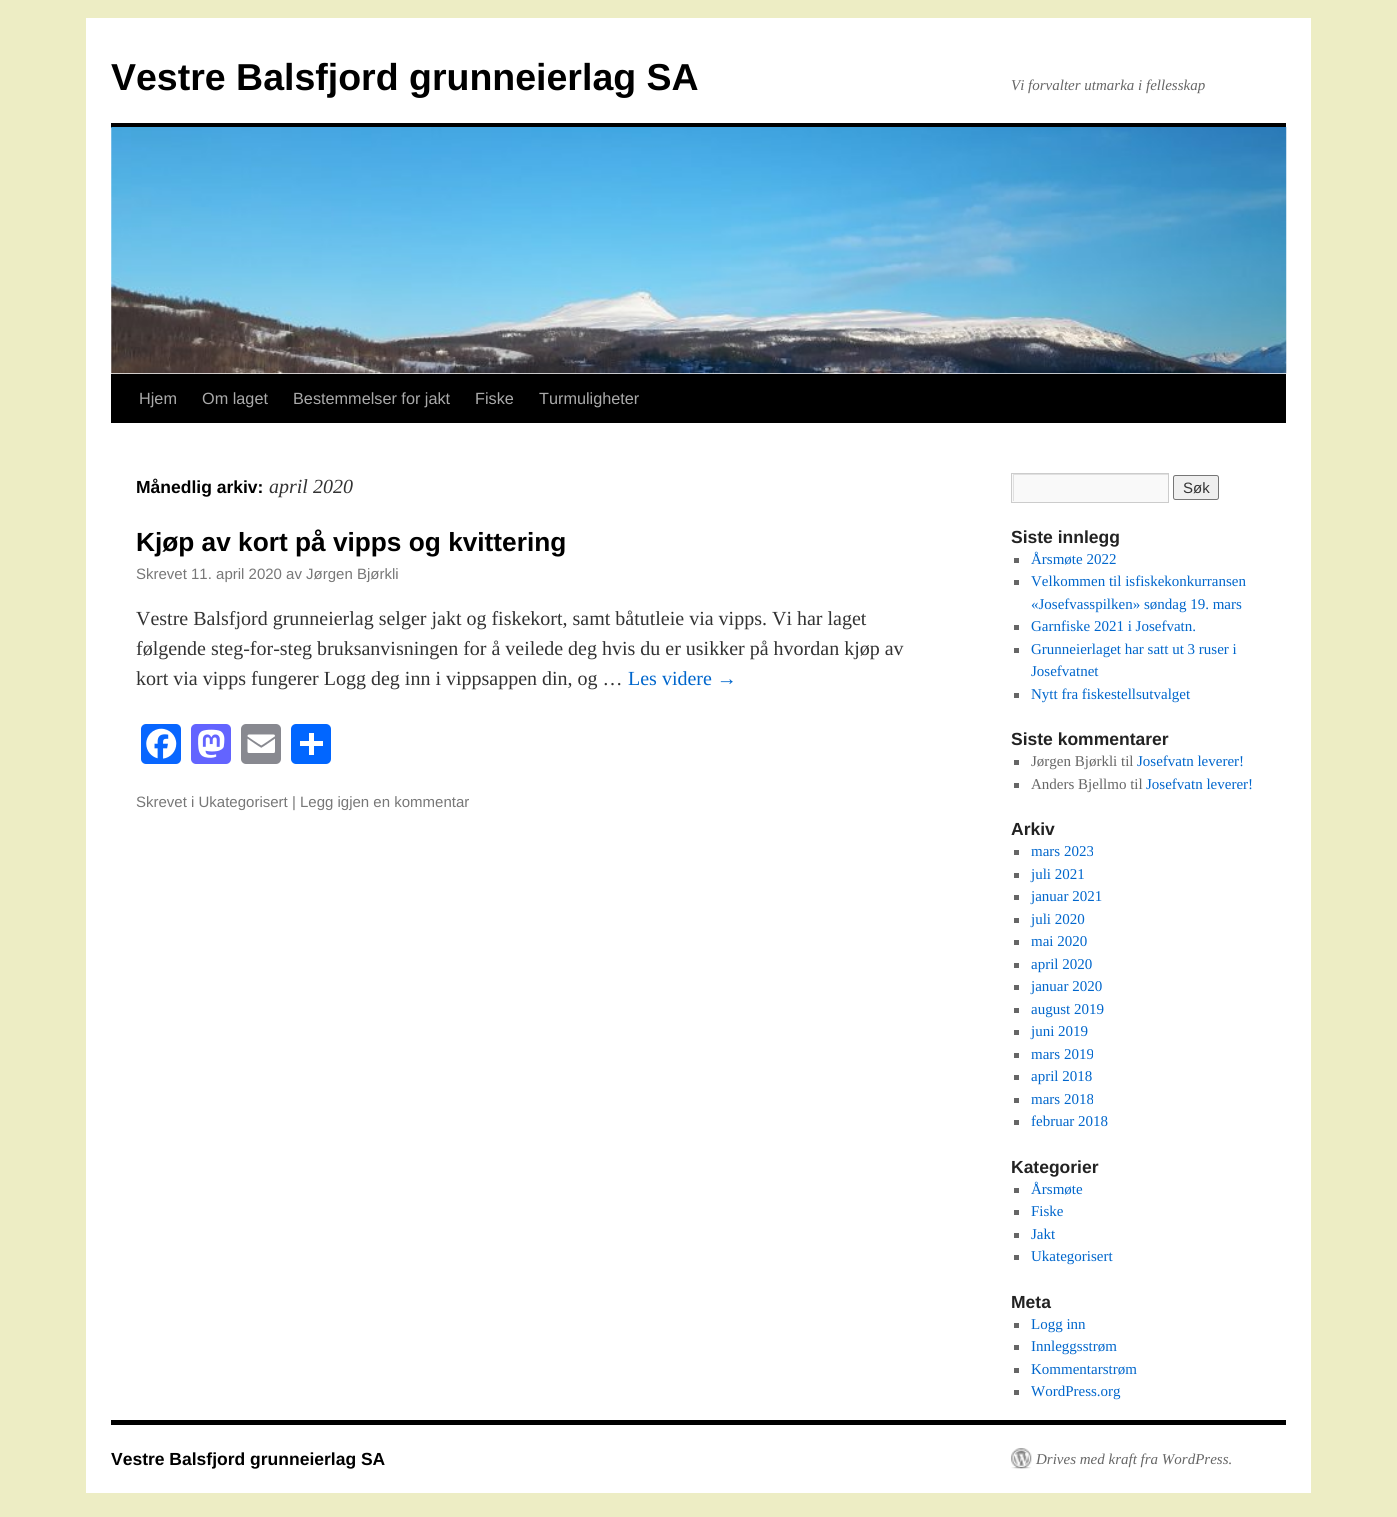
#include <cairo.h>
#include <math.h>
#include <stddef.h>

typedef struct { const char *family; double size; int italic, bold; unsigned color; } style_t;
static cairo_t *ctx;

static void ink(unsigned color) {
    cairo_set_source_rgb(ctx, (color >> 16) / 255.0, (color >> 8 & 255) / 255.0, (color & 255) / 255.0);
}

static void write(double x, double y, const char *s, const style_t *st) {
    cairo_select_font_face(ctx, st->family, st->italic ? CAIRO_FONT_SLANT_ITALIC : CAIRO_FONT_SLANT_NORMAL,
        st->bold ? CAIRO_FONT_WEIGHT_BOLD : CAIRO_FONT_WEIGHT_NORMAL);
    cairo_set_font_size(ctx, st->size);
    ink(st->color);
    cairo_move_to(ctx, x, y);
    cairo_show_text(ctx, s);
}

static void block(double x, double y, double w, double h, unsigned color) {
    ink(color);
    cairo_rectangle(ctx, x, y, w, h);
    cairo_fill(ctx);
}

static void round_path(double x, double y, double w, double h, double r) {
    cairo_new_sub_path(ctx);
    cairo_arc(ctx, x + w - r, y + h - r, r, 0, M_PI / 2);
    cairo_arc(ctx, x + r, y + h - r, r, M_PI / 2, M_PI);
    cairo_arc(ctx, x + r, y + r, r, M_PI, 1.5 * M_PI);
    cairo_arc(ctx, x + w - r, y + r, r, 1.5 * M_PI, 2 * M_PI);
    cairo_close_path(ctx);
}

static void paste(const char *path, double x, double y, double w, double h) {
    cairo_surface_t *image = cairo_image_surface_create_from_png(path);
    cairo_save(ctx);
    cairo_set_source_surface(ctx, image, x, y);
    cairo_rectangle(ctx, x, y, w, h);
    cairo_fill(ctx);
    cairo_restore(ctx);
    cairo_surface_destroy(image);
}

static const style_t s1 = {"Liberation Sans", 37.5, 0, 1, 0x000000};
static const style_t s2 = {"Liberation Serif", 15, 1, 0, 0x666666};
static const style_t s3 = {"Liberation Sans", 16.25, 0, 0, 0xaaaaaa};
static const style_t s4 = {"Liberation Sans", 17.5, 0, 1, 0x000000};
static const style_t s5 = {"Liberation Serif", 20, 1, 0, 0x333333};
static const style_t s6 = {"Liberation Sans", 26.25, 0, 1, 0x000000};
static const style_t s7 = {"Liberation Sans", 15, 0, 0, 0x777777};
static const style_t s8 = {"Liberation Serif", 20, 0, 0, 0x333333};
static const style_t s9 = {"Liberation Serif", 20, 0, 0, 0x0066cc};
static const style_t s10 = {"Liberation Sans", 15, 0, 0, 0x333333};
static const style_t s11 = {"Liberation Sans", 17.5, 0, 1, 0x222222};
static const style_t s12 = {"Liberation Serif", 15, 0, 0, 0x0066cc};
static const style_t s13 = {"Liberation Serif", 15, 0, 0, 0x666666};

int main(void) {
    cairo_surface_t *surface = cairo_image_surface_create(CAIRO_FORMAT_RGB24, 1397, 1517);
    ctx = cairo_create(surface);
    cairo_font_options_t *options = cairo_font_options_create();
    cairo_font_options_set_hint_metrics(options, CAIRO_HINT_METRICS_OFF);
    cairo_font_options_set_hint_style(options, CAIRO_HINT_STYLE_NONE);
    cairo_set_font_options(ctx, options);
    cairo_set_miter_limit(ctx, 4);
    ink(0xededc4);
    cairo_paint(ctx);
    block(86, 18, 1225, 1475, 0xffffff);
    write(111, 90, "Vestre Balsfjord grunneierlag SA", &s1);
    write(1011, 90, "Vi forvalter utmarka i fellesskap", &s2);
    block(111, 123, 1175, 5, 0x000000);
    block(111, 374, 1175, 49, 0x000000);
    paste("pic1.png", 111, 127, 1176, 247);
    write(139, 404, "Hjem", &s3);
    write(202, 404, "Om laget", &s3);
    write(293, 404, "Bestemmelser for jakt", &s3);
    write(475, 404, "Fiske", &s3);
    write(539, 404, "Turmuligheter", &s3);
    write(136, 493, "Månedlig arkiv:", &s4);
    write(269, 493, "april 2020", &s5);
    write(136, 551, "Kjøp av kort på vipps og kvittering", &s6);
    write(136, 579, "Skrevet 11. april 2020 av Jørgen Bjørkli", &s7);
    write(136, 625, "Vestre Balsfjord grunneierlag selger jakt og fiskekort, samt båtutleie via vipps. Vi har laget", &s8);
    write(136, 655, "følgende steg-for-steg bruksanvisningen for å veilede deg hvis du er usikker på hvordan kjøp av", &s8);
    write(136, 685, "kort via vipps fungerer Logg deg inn i vippsappen din, og …", &s8);
    write(628, 685, "Les videre →", &s9);
    ink(0x0866ff);
    round_path(141, 724, 40, 40, 5);
    cairo_fill(ctx);
    paste("pic2.png", 146, 728, 31, 31);
    ink(0x6364ff);
    round_path(191, 724, 40, 40, 5);
    cairo_fill(ctx);
    paste("pic3.png", 198, 729, 27, 29);
    ink(0x888990);
    round_path(241, 724, 40, 40, 5);
    cairo_fill(ctx);
    paste("pic4.png", 247, 734, 28, 19);
    ink(0x0166ff);
    round_path(291, 724, 40, 40, 5);
    cairo_fill(ctx);
    block(309, 733, 5, 22, 0xffffff);
    block(300, 741, 23, 5, 0xffffff);
    write(136, 807, "Skrevet i Ukategorisert | Legg igjen en kommentar", &s7);
    block(1012, 474, 156, 28, 0xf9f9f9);
    cairo_save(ctx);
    cairo_rectangle(ctx, 1013, 474, 155, 27);
    cairo_clip(ctx);
    ink(0xe0e0e0);
    cairo_set_fill_rule(ctx, CAIRO_FILL_RULE_EVEN_ODD);
    cairo_new_path(ctx);
    cairo_move_to(ctx, 889, 350);
    cairo_line_to(ctx, 1291, 350);
    cairo_line_to(ctx, 1291, 625);
    cairo_line_to(ctx, 889, 625);
    cairo_close_path(ctx);
    cairo_move_to(ctx, 1014, 475);
    cairo_line_to(ctx, 1169, 475);
    cairo_line_to(ctx, 1169, 502);
    cairo_line_to(ctx, 1014, 502);
    cairo_close_path(ctx);
    cairo_fill(ctx);
    cairo_restore(ctx);
    cairo_rectangle(ctx, 1011.5, 473.5, 157, 29);
    ink(0xcccccc);
    cairo_set_line_width(ctx, 1);
    cairo_stroke(ctx);
    ink(0xefefef);
    round_path(1173.5, 475.5, 45, 24, 2);
    cairo_fill_preserve(ctx);
    ink(0x767676);
    cairo_stroke(ctx);
    write(1183, 493, "Søk", &s10);
    write(1011, 543, "Siste innlegg", &s11);
    block(1014, 558, 5, 5, 0x666666);
    write(1031, 564, "Årsmøte 2022", &s12);
    block(1014, 580, 5, 5, 0x666666);
    write(1031, 586, "Velkommen til isfiskekonkurransen", &s12);
    write(1031, 609, "«Josefvasspilken» søndag 19. mars", &s12);
    block(1014, 625, 5, 5, 0x666666);
    write(1031, 631, "Garnfiske 2021 i Josefvatn.", &s12);
    block(1014, 648, 5, 5, 0x666666);
    write(1031, 654, "Grunneierlaget har satt ut 3 ruser i", &s12);
    write(1031, 676, "Josefvatnet", &s12);
    block(1014, 693, 5, 5, 0x666666);
    write(1031, 699, "Nytt fra fiskestellsutvalget", &s12);
    write(1011, 745, "Siste kommentarer", &s11);
    block(1014, 760, 5, 5, 0x666666);
    write(1031, 766, "Jørgen Bjørkli til", &s13);
    write(1137, 766, "Josefvatn leverer!", &s12);
    block(1014, 783, 5, 5, 0x666666);
    write(1031, 789, "Anders Bjellmo til", &s13);
    write(1146, 789, "Josefvatn leverer!", &s12);
    write(1011, 835, "Arkiv", &s11);
    block(1014, 850, 5, 5, 0x666666);
    write(1031, 856, "mars 2023", &s12);
    block(1014, 873, 5, 5, 0x666666);
    write(1031, 879, "juli 2021", &s12);
    block(1014, 895, 5, 5, 0x666666);
    write(1031, 901, "januar 2021", &s12);
    block(1014, 918, 5, 5, 0x666666);
    write(1031, 924, "juli 2020", &s12);
    block(1014, 940, 5, 5, 0x666666);
    write(1031, 946, "mai 2020", &s12);
    block(1014, 963, 5, 5, 0x666666);
    write(1031, 969, "april 2020", &s12);
    block(1014, 985, 5, 5, 0x666666);
    write(1031, 991, "januar 2020", &s12);
    block(1014, 1008, 5, 5, 0x666666);
    write(1031, 1014, "august 2019", &s12);
    block(1014, 1030, 5, 5, 0x666666);
    write(1031, 1036, "juni 2019", &s12);
    block(1014, 1053, 5, 5, 0x666666);
    write(1031, 1059, "mars 2019", &s12);
    block(1014, 1075, 5, 5, 0x666666);
    write(1031, 1081, "april 2018", &s12);
    block(1014, 1098, 5, 5, 0x666666);
    write(1031, 1104, "mars 2018", &s12);
    block(1014, 1120, 5, 5, 0x666666);
    write(1031, 1126, "februar 2018", &s12);
    write(1011, 1173, "Kategorier", &s11);
    block(1014, 1188, 5, 5, 0x666666);
    write(1031, 1194, "Årsmøte", &s12);
    block(1014, 1210, 5, 5, 0x666666);
    write(1031, 1216, "Fiske", &s12);
    block(1014, 1233, 5, 5, 0x666666);
    write(1031, 1239, "Jakt", &s12);
    block(1014, 1255, 5, 5, 0x666666);
    write(1031, 1261, "Ukategorisert", &s12);
    write(1011, 1308, "Meta", &s11);
    block(1014, 1323, 5, 5, 0x666666);
    write(1031, 1329, "Logg inn", &s12);
    block(1014, 1345, 5, 5, 0x666666);
    write(1031, 1351, "Innleggsstrøm", &s12);
    block(1014, 1368, 5, 5, 0x666666);
    write(1031, 1374, "Kommentarstrøm", &s12);
    block(1014, 1390, 5, 5, 0x666666);
    write(1031, 1396, "WordPress.org", &s12);
    block(111, 1420, 1175, 5, 0x000000);
    write(111, 1465, "Vestre Balsfjord grunneierlag SA", &s4);
    paste("pic5.png", 1011, 1448, 21, 21);
    write(1036, 1464, "Drives med kraft fra WordPress.", &s2);
    cairo_surface_write_to_png(surface, "screenshot.png");
    cairo_font_options_destroy(options);
    cairo_destroy(ctx);
    cairo_surface_destroy(surface);
    return 0;
}
